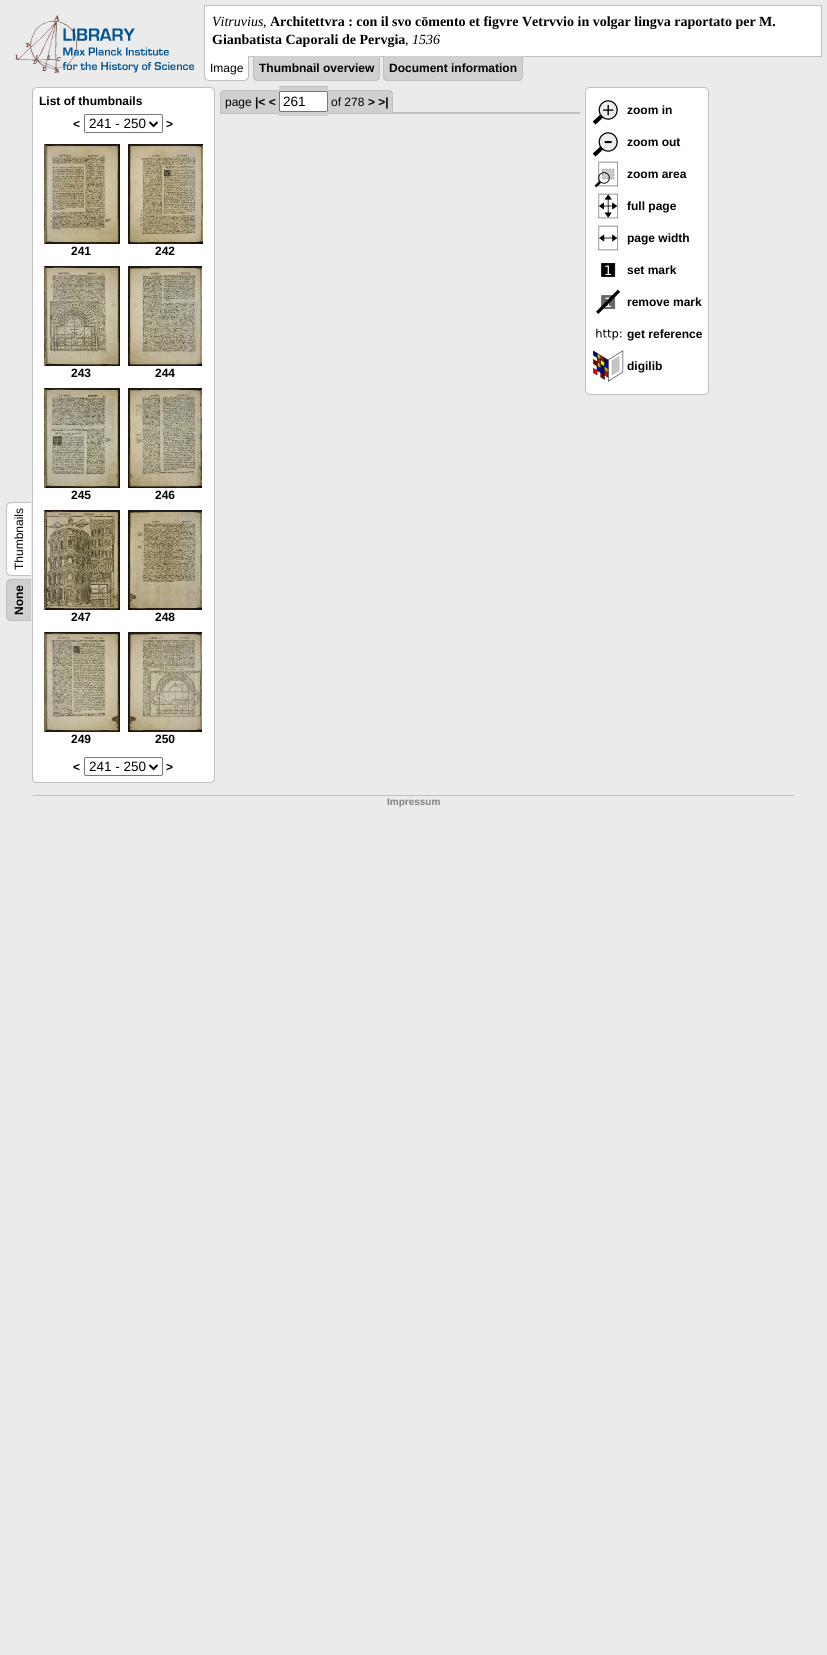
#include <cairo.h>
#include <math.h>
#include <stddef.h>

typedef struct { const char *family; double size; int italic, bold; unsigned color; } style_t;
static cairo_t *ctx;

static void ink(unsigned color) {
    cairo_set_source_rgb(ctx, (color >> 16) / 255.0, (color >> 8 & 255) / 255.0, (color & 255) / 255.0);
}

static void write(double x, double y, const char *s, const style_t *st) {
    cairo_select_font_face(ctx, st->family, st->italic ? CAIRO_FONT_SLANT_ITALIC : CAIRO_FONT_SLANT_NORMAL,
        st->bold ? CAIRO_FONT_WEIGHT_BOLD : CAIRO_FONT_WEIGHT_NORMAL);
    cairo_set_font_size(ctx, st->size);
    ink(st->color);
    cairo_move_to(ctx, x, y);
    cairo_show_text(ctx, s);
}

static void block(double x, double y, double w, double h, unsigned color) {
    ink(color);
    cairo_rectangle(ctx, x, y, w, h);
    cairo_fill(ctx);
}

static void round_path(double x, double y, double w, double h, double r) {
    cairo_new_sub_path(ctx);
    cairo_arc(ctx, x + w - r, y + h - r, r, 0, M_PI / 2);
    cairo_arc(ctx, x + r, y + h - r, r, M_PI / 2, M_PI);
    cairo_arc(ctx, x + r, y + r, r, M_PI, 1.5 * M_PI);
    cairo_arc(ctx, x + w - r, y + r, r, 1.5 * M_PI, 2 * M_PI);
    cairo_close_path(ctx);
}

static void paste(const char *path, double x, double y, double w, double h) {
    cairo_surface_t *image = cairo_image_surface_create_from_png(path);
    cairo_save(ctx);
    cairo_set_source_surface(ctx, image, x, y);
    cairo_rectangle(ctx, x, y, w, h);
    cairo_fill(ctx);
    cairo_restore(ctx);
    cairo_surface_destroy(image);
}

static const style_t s1 = {"Liberation Serif", 14, 1, 0, 0x000000};
static const style_t s2 = {"Liberation Serif", 14, 0, 0, 0x000000};
static const style_t s3 = {"Liberation Serif", 14, 0, 1, 0x000000};
static const style_t s4 = {"Liberation Sans", 12, 0, 0, 0x000000};
static const style_t s5 = {"Liberation Sans", 12, 0, 1, 0x000000};
static const style_t s6 = {"Liberation Sans", 13.5, 0, 0, 0x000000};
static const style_t s7 = {"Liberation Sans", 10, 0, 1, 0x808080};

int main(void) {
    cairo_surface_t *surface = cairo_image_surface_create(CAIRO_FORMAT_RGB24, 827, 1655);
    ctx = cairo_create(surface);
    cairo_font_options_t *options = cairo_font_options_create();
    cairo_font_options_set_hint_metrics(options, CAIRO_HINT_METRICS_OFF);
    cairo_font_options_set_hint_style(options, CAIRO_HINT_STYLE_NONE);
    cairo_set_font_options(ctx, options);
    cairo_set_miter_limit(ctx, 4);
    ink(0xebebeb);
    cairo_paint(ctx);
    paste("pic1.png", 15, 15, 179, 58);
    ink(0xffffff);
    cairo_rectangle(ctx, 204.5, 5.5, 617, 51);
    cairo_fill_preserve(ctx);
    ink(0xc0c0c0);
    cairo_set_line_width(ctx, 1);
    cairo_stroke(ctx);
    write(212, 26, "Vitruvius", &s1);
    write(263, 26, ",", &s2);
    write(270, 26, "Architettvra : con il svo cōmento et figvre Vetrvvio in volgar lingva raportato per M.", &s3);
    write(212, 44, "Gianbatista Caporali de Pervgia", &s3);
    write(405, 44, ",", &s2);
    write(412, 44, "1536", &s1);
    ink(0xffffff);
    cairo_new_path(ctx);
    cairo_move_to(ctx, 204, 56);
    cairo_line_to(ctx, 249, 56);
    cairo_line_to(ctx, 249, 76);
    cairo_curve_to(ctx, 249, 79, 247, 81, 244, 81);
    cairo_line_to(ctx, 209, 81);
    cairo_curve_to(ctx, 206, 81, 204, 79, 204, 76);
    cairo_close_path(ctx);
    cairo_fill(ctx);
    ink(0xc0c0c0);
    cairo_set_fill_rule(ctx, CAIRO_FILL_RULE_EVEN_ODD);
    cairo_new_path(ctx);
    cairo_move_to(ctx, 204, 56);
    cairo_line_to(ctx, 249, 56);
    cairo_line_to(ctx, 249, 76);
    cairo_curve_to(ctx, 249, 79, 247, 81, 244, 81);
    cairo_line_to(ctx, 209, 81);
    cairo_curve_to(ctx, 206, 81, 204, 79, 204, 76);
    cairo_close_path(ctx);
    cairo_move_to(ctx, 205, 56);
    cairo_line_to(ctx, 248, 56);
    cairo_line_to(ctx, 248, 76);
    cairo_curve_to(ctx, 248, 78, 246, 80, 244, 80);
    cairo_line_to(ctx, 209, 80);
    cairo_curve_to(ctx, 207, 80, 205, 78, 205, 76);
    cairo_close_path(ctx);
    cairo_fill(ctx);
    write(210, 72, "Image", &s4);
    ink(0xd0d0d0);
    cairo_new_path(ctx);
    cairo_move_to(ctx, 253, 56);
    cairo_line_to(ctx, 380, 56);
    cairo_line_to(ctx, 380, 76);
    cairo_curve_to(ctx, 380, 79, 378, 81, 375, 81);
    cairo_line_to(ctx, 258, 81);
    cairo_curve_to(ctx, 255, 81, 253, 79, 253, 76);
    cairo_close_path(ctx);
    cairo_fill(ctx);
    ink(0xc0c0c0);
    cairo_new_path(ctx);
    cairo_move_to(ctx, 253, 56);
    cairo_line_to(ctx, 380, 56);
    cairo_line_to(ctx, 380, 76);
    cairo_curve_to(ctx, 380, 79, 378, 81, 375, 81);
    cairo_line_to(ctx, 258, 81);
    cairo_curve_to(ctx, 255, 81, 253, 79, 253, 76);
    cairo_close_path(ctx);
    cairo_move_to(ctx, 254, 56);
    cairo_line_to(ctx, 379, 56);
    cairo_line_to(ctx, 379, 76);
    cairo_curve_to(ctx, 379, 78, 377, 80, 375, 80);
    cairo_line_to(ctx, 258, 80);
    cairo_curve_to(ctx, 256, 80, 254, 78, 254, 76);
    cairo_close_path(ctx);
    cairo_fill(ctx);
    write(259, 72, "Thumbnail overview", &s5);
    ink(0xd0d0d0);
    cairo_new_path(ctx);
    cairo_move_to(ctx, 383, 56);
    cairo_line_to(ctx, 523, 56);
    cairo_line_to(ctx, 523, 76);
    cairo_curve_to(ctx, 523, 79, 521, 81, 518, 81);
    cairo_line_to(ctx, 388, 81);
    cairo_curve_to(ctx, 385, 81, 383, 79, 383, 76);
    cairo_close_path(ctx);
    cairo_fill(ctx);
    ink(0xc0c0c0);
    cairo_new_path(ctx);
    cairo_move_to(ctx, 383, 56);
    cairo_line_to(ctx, 523, 56);
    cairo_line_to(ctx, 523, 76);
    cairo_curve_to(ctx, 523, 79, 521, 81, 518, 81);
    cairo_line_to(ctx, 388, 81);
    cairo_curve_to(ctx, 385, 81, 383, 79, 383, 76);
    cairo_close_path(ctx);
    cairo_move_to(ctx, 384, 56);
    cairo_line_to(ctx, 522, 56);
    cairo_line_to(ctx, 522, 76);
    cairo_curve_to(ctx, 522, 78, 520, 80, 518, 80);
    cairo_line_to(ctx, 388, 80);
    cairo_curve_to(ctx, 386, 80, 384, 78, 384, 76);
    cairo_close_path(ctx);
    cairo_fill(ctx);
    write(389, 72, "Document information", &s5);
    ink(0xffffff);
    cairo_set_fill_rule(ctx, CAIRO_FILL_RULE_WINDING);
    cairo_new_path(ctx);
    cairo_move_to(ctx, 6, 571);
    cairo_line_to(ctx, 6, 507);
    cairo_curve_to(ctx, 6, 504, 8, 502, 11, 502);
    cairo_line_to(ctx, 31, 502);
    cairo_line_to(ctx, 31, 576);
    cairo_line_to(ctx, 11, 576);
    cairo_curve_to(ctx, 8, 576, 6, 574, 6, 571);
    cairo_close_path(ctx);
    cairo_fill(ctx);
    ink(0xc0c0c0);
    cairo_set_fill_rule(ctx, CAIRO_FILL_RULE_EVEN_ODD);
    cairo_new_path(ctx);
    cairo_move_to(ctx, 6, 571);
    cairo_line_to(ctx, 6, 507);
    cairo_curve_to(ctx, 6, 504, 8, 502, 11, 502);
    cairo_line_to(ctx, 31, 502);
    cairo_line_to(ctx, 31, 576);
    cairo_line_to(ctx, 11, 576);
    cairo_curve_to(ctx, 8, 576, 6, 574, 6, 571);
    cairo_close_path(ctx);
    cairo_move_to(ctx, 7, 571);
    cairo_line_to(ctx, 7, 507);
    cairo_curve_to(ctx, 7, 505, 9, 503, 11, 503);
    cairo_line_to(ctx, 31, 503);
    cairo_line_to(ctx, 31, 575);
    cairo_line_to(ctx, 11, 575);
    cairo_curve_to(ctx, 9, 575, 7, 573, 7, 571);
    cairo_close_path(ctx);
    cairo_fill(ctx);
    cairo_save(ctx);
    cairo_translate(ctx, 23, 570);
    cairo_rotate(ctx, -90 * M_PI / 180);
    write(0, 0, "Thumbnails", &s4);
    cairo_restore(ctx);
    ink(0xd0d0d0);
    cairo_set_fill_rule(ctx, CAIRO_FILL_RULE_WINDING);
    cairo_new_path(ctx);
    cairo_move_to(ctx, 6, 616);
    cairo_line_to(ctx, 6, 584);
    cairo_curve_to(ctx, 6, 582, 8, 579, 11, 579);
    cairo_line_to(ctx, 31, 579);
    cairo_line_to(ctx, 31, 621);
    cairo_line_to(ctx, 11, 621);
    cairo_curve_to(ctx, 8, 621, 6, 619, 6, 616);
    cairo_close_path(ctx);
    cairo_fill(ctx);
    ink(0xc0c0c0);
    cairo_set_fill_rule(ctx, CAIRO_FILL_RULE_EVEN_ODD);
    cairo_new_path(ctx);
    cairo_move_to(ctx, 6, 616);
    cairo_line_to(ctx, 6, 584);
    cairo_curve_to(ctx, 6, 582, 8, 579, 11, 579);
    cairo_line_to(ctx, 31, 579);
    cairo_line_to(ctx, 31, 621);
    cairo_line_to(ctx, 11, 621);
    cairo_curve_to(ctx, 8, 621, 6, 619, 6, 616);
    cairo_close_path(ctx);
    cairo_move_to(ctx, 7, 616);
    cairo_line_to(ctx, 7, 584);
    cairo_curve_to(ctx, 7, 582, 9, 580, 11, 580);
    cairo_line_to(ctx, 31, 580);
    cairo_line_to(ctx, 31, 620);
    cairo_line_to(ctx, 11, 620);
    cairo_curve_to(ctx, 9, 620, 7, 619, 7, 616);
    cairo_close_path(ctx);
    cairo_fill(ctx);
    cairo_save(ctx);
    cairo_translate(ctx, 23, 615);
    cairo_rotate(ctx, -90 * M_PI / 180);
    write(0, 0, "None", &s5);
    cairo_restore(ctx);
    ink(0xffffff);
    round_path(32.5, 87.5, 182, 695, 4.5);
    cairo_fill_preserve(ctx);
    ink(0xc0c0c0);
    cairo_stroke(ctx);
    write(39, 105, "List of thumbnails", &s5);
    write(73, 128, "<", &s5);
    round_path(84.5, 114.5, 78, 18, 1.5);
    ink(0x767676);
    cairo_stroke(ctx);
    cairo_new_path(ctx);
    cairo_move_to(ctx, 149.5, 122);
    cairo_line_to(ctx, 153.5, 126);
    cairo_line_to(ctx, 157.5, 122);
    ink(0x000000);
    cairo_set_line_width(ctx, 2);
    cairo_stroke(ctx);
    write(89, 128, "241 - 250", &s6);
    write(166, 128, ">", &s5);
    paste("pic2.png", 44, 144, 76, 100);
    write(71, 255, "241", &s5);
    paste("pic3.png", 128, 144, 75, 100);
    write(155, 255, "242", &s5);
    paste("pic4.png", 44, 266, 76, 100);
    write(71, 377, "243", &s5);
    paste("pic5.png", 128, 266, 74, 100);
    write(155, 377, "244", &s5);
    paste("pic6.png", 44, 388, 76, 100);
    write(71, 499, "245", &s5);
    paste("pic7.png", 128, 388, 74, 100);
    write(155, 499, "246", &s5);
    paste("pic8.png", 44, 510, 76, 100);
    write(71, 621, "247", &s5);
    paste("pic9.png", 128, 510, 74, 100);
    write(155, 621, "248", &s5);
    paste("pic10.png", 44, 632, 76, 100);
    write(71, 743, "249", &s5);
    paste("pic11.png", 128, 632, 74, 100);
    write(155, 743, "250", &s5);
    write(73, 771, "<", &s5);
    round_path(84.5, 757.5, 78, 18, 1.5);
    ink(0x767676);
    cairo_set_line_width(ctx, 1);
    cairo_stroke(ctx);
    cairo_new_path(ctx);
    cairo_move_to(ctx, 149.5, 765);
    cairo_line_to(ctx, 153.5, 769);
    cairo_line_to(ctx, 157.5, 765);
    ink(0x000000);
    cairo_set_line_width(ctx, 2);
    cairo_stroke(ctx);
    write(89, 771, "241 - 250", &s6);
    write(166, 771, ">", &s5);
    block(220, 112, 360, 2, 0xc0c0c0);
    ink(0xd0d0d0);
    cairo_new_path(ctx);
    cairo_move_to(ctx, 225, 90);
    cairo_line_to(ctx, 255, 90);
    cairo_line_to(ctx, 255, 113);
    cairo_line_to(ctx, 220, 113);
    cairo_line_to(ctx, 220, 95);
    cairo_curve_to(ctx, 220, 92, 222, 90, 225, 90);
    cairo_close_path(ctx);
    cairo_fill(ctx);
    ink(0xc0c0c0);
    cairo_new_path(ctx);
    cairo_move_to(ctx, 225, 90);
    cairo_line_to(ctx, 255, 90);
    cairo_line_to(ctx, 255, 113);
    cairo_line_to(ctx, 220, 113);
    cairo_line_to(ctx, 220, 95);
    cairo_curve_to(ctx, 220, 92, 222, 90, 225, 90);
    cairo_close_path(ctx);
    cairo_move_to(ctx, 225, 91);
    cairo_line_to(ctx, 255, 91);
    cairo_line_to(ctx, 255, 113);
    cairo_line_to(ctx, 221, 113);
    cairo_line_to(ctx, 221, 95);
    cairo_curve_to(ctx, 221, 93, 223, 91, 225, 91);
    cairo_close_path(ctx);
    cairo_fill(ctx);
    block(255, 91, 10, 22, 0xd0d0d0);
    block(255, 90, 10, 1, 0xc0c0c0);
    block(265, 90, 14, 23, 0xd0d0d0);
    block(265, 90, 14, 1, 0xc0c0c0);
    block(279, 87, 49, 29, 0xd0d0d0);
    block(279, 86, 49, 1, 0xc0c0c0);
    block(328, 90, 3, 23, 0xd0d0d0);
    block(328, 90, 40, 1, 0xc0c0c0);
    block(331, 91, 37, 22, 0xd0d0d0);
    block(368, 90, 10, 23, 0xd0d0d0);
    block(368, 90, 10, 1, 0xc0c0c0);
    ink(0xd0d0d0);
    cairo_new_path(ctx);
    cairo_move_to(ctx, 378, 90);
    cairo_line_to(ctx, 388, 90);
    cairo_curve_to(ctx, 391, 90, 393, 92, 393, 95);
    cairo_line_to(ctx, 393, 113);
    cairo_line_to(ctx, 378, 113);
    cairo_close_path(ctx);
    cairo_fill(ctx);
    ink(0xc0c0c0);
    cairo_new_path(ctx);
    cairo_move_to(ctx, 378, 90);
    cairo_line_to(ctx, 388, 90);
    cairo_curve_to(ctx, 391, 90, 393, 92, 393, 95);
    cairo_line_to(ctx, 393, 113);
    cairo_line_to(ctx, 378, 113);
    cairo_close_path(ctx);
    cairo_move_to(ctx, 378, 91);
    cairo_line_to(ctx, 388, 91);
    cairo_curve_to(ctx, 390, 91, 392, 93, 392, 95);
    cairo_line_to(ctx, 392, 113);
    cairo_line_to(ctx, 378, 113);
    cairo_close_path(ctx);
    cairo_fill(ctx);
    write(225, 106, "page", &s4);
    write(255, 106, "|< <", &s5);
    ink(0xffffff);
    round_path(279.5, 91.5, 48, 20, 1.5);
    cairo_fill_preserve(ctx);
    ink(0x767676);
    cairo_set_line_width(ctx, 1);
    cairo_stroke(ctx);
    write(283, 106, "261", &s6);
    write(331, 106, "of 278", &s4);
    write(368, 106, "> >|", &s5);
    ink(0xffffff);
    round_path(585.5, 87.5, 123, 307, 4.5);
    cairo_fill_preserve(ctx);
    ink(0xc0c0c0);
    cairo_stroke(ctx);
    paste("pic12.png", 592, 100, 26, 25);
    write(627, 114, "zoom in", &s5);
    paste("pic13.png", 592, 132, 26, 25);
    write(627, 146, "zoom out", &s5);
    paste("pic14.png", 594, 161, 24, 27);
    write(627, 178, "zoom area", &s5);
    paste("pic15.png", 598, 193, 20, 26);
    write(627, 210, "full page", &s5);
    paste("pic16.png", 598, 225, 20, 26);
    write(627, 242, "page width", &s5);
    paste("pic17.png", 601, 263, 15, 14);
    write(627, 274, "set mark", &s5);
    paste("pic18.png", 596, 289, 24, 25);
    write(627, 306, "remove mark", &s5);
    paste("pic19.png", 596, 328, 26, 12);
    write(627, 338, "get reference", &s5);
    paste("pic20.png", 593, 350, 31, 32);
    write(627, 370, "digilib", &s5);
    block(33, 795, 761, 1, 0xc0c0c0);
    write(387, 805, "Impressum", &s7);
    cairo_surface_write_to_png(surface, "screenshot.png");
    cairo_font_options_destroy(options);
    cairo_destroy(ctx);
    cairo_surface_destroy(surface);
    return 0;
}
